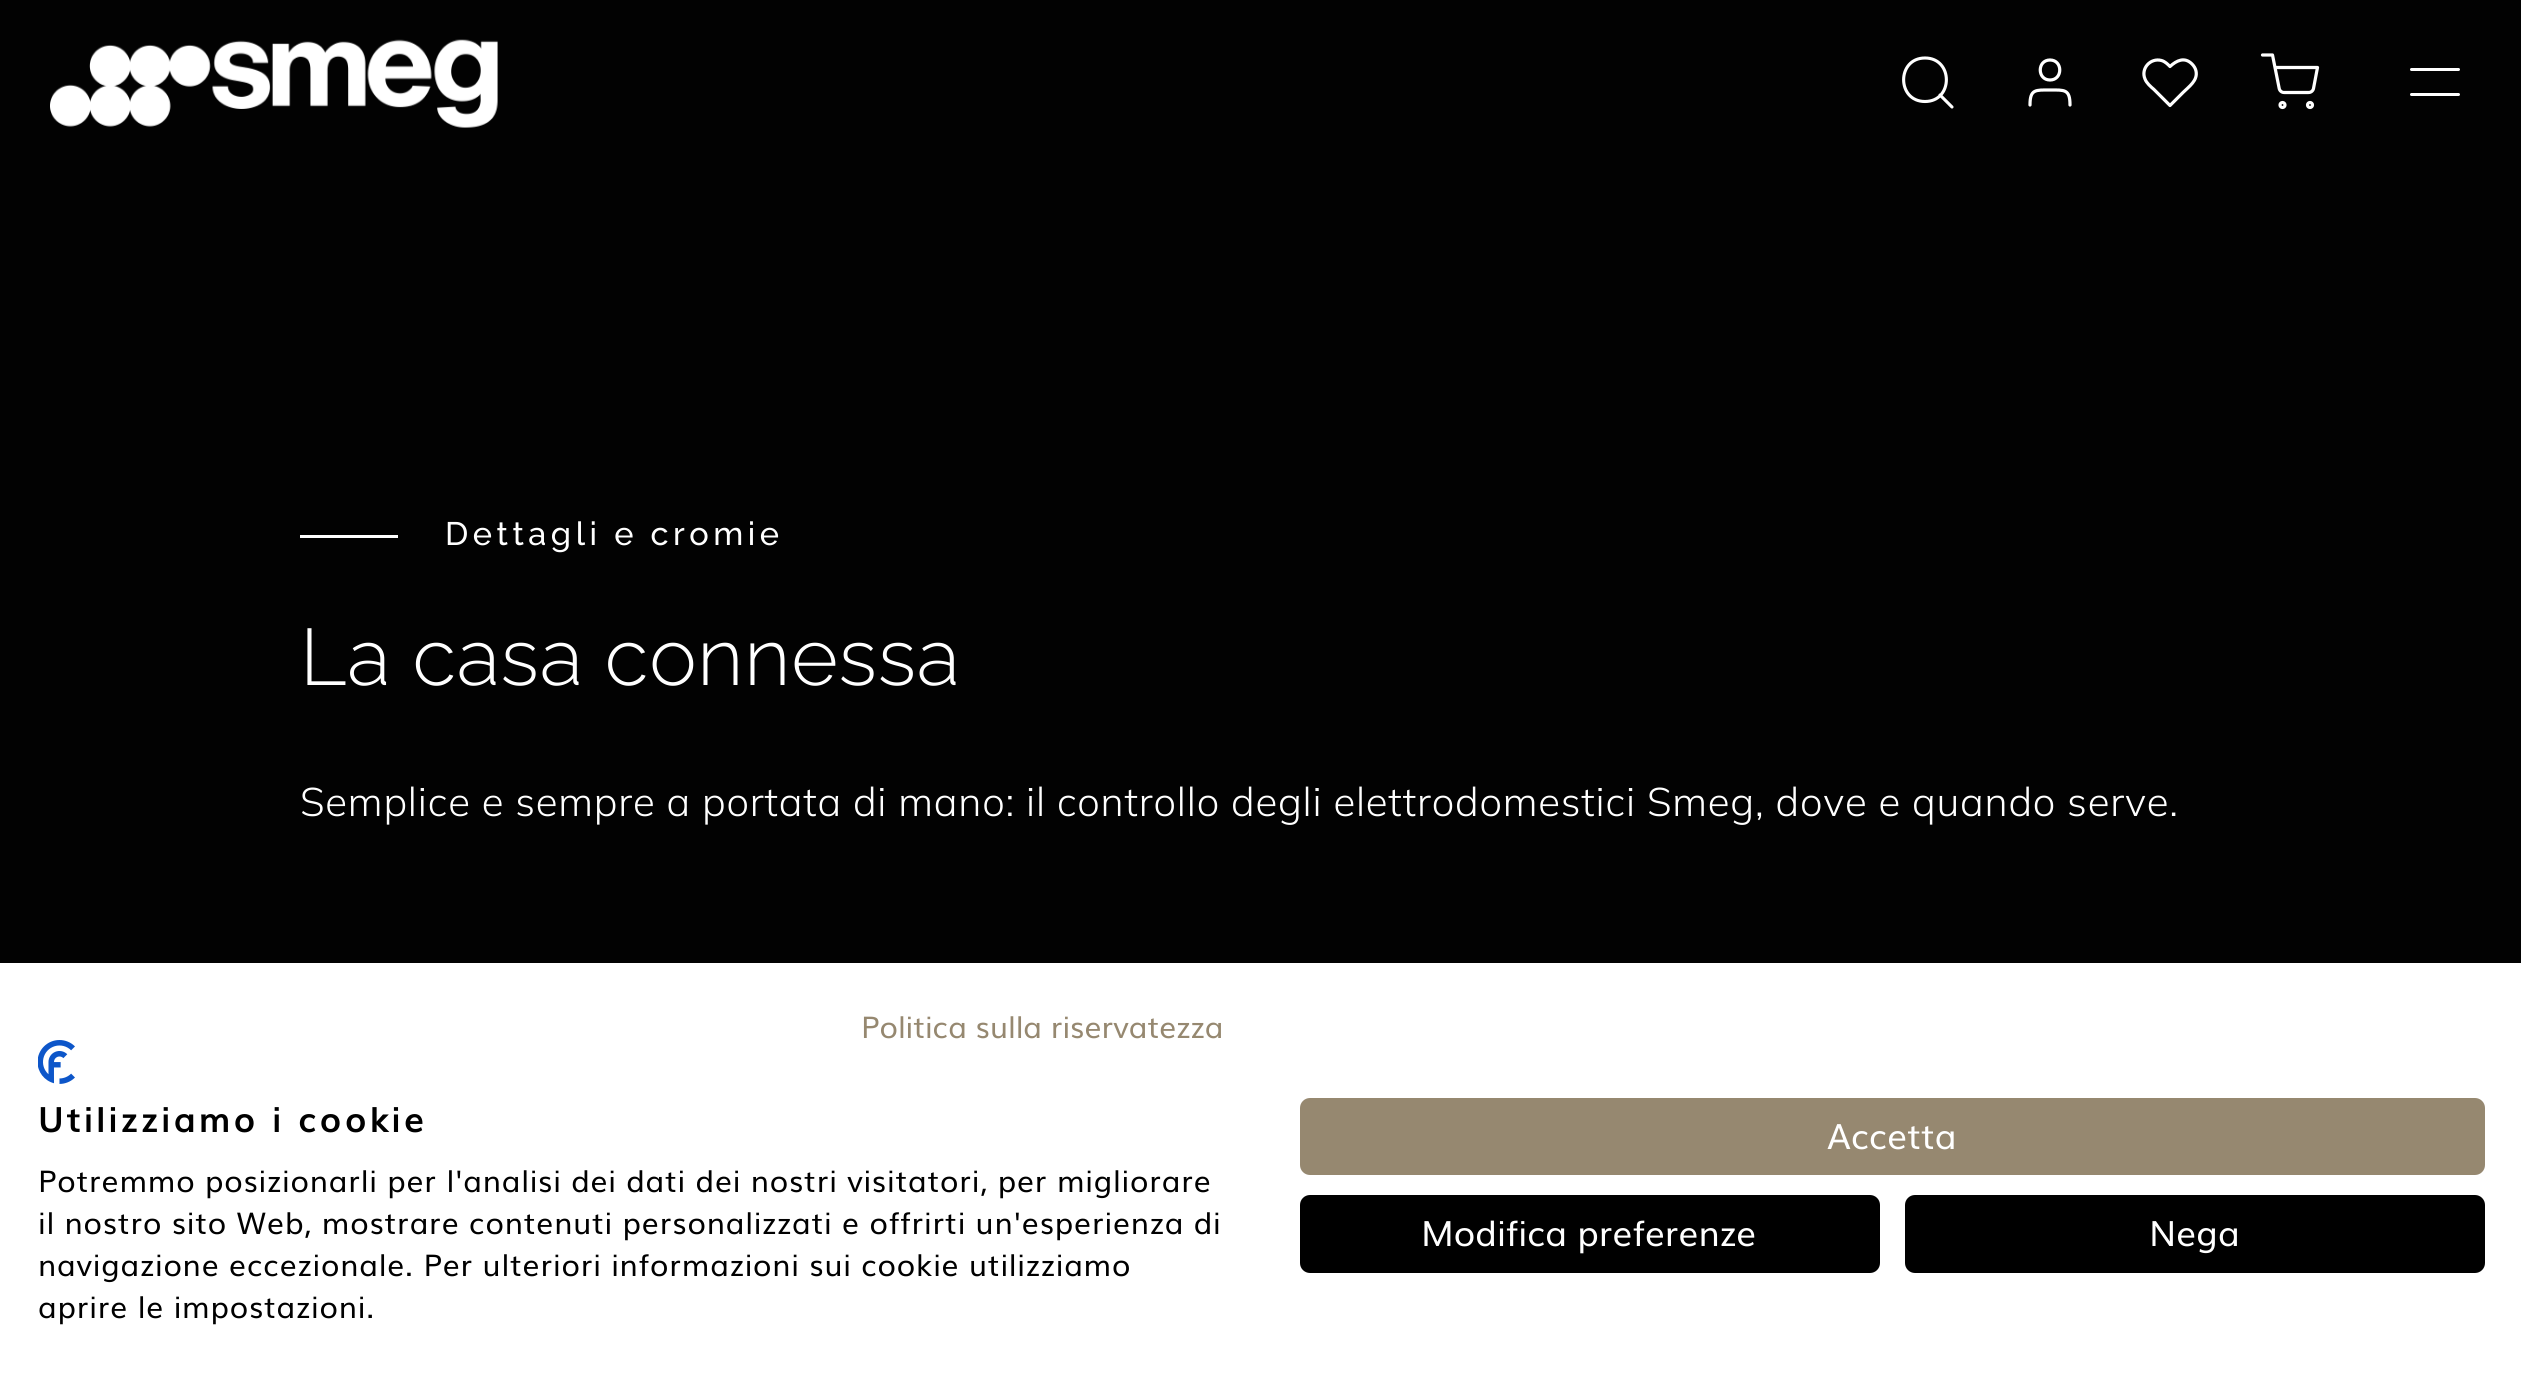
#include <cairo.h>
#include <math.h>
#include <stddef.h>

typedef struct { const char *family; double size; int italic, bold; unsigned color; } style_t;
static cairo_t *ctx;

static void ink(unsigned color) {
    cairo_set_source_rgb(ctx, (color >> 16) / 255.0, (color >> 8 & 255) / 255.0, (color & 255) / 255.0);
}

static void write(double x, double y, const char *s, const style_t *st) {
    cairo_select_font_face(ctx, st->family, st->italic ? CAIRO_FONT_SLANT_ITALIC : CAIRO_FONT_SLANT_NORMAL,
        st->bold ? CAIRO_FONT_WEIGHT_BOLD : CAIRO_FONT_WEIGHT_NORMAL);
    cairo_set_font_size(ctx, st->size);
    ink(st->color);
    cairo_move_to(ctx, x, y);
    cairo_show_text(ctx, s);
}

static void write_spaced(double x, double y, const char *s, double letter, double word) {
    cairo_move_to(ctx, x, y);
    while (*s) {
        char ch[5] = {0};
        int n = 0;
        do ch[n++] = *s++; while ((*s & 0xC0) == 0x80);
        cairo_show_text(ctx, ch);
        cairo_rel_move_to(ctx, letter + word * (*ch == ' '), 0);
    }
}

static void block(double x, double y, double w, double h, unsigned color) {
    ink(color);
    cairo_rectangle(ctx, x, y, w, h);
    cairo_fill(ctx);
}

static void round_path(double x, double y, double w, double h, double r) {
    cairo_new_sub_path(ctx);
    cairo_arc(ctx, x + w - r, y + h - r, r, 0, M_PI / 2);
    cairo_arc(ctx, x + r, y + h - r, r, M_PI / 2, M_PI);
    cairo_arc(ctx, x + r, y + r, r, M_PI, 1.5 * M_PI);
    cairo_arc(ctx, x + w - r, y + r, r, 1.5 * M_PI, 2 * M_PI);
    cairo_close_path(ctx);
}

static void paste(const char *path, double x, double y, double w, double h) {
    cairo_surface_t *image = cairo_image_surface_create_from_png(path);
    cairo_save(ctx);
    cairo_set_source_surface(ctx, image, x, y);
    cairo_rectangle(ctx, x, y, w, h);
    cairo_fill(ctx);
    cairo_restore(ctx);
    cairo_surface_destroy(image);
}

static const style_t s1 = {"Muli", 30, 0, 0, 0x968870};
static const style_t s2 = {"Muli", 35, 0, 0, 0xffffff};

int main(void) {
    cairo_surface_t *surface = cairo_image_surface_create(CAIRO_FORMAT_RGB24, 2521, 1394);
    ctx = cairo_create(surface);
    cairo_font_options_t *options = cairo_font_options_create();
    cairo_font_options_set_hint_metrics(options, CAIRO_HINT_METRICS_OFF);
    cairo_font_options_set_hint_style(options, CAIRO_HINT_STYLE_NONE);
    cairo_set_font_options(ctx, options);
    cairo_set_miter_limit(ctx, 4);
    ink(0x020202);
    cairo_paint(ctx);
    paste("pic1.png", 50, 39, 448, 89);
    cairo_new_path(ctx);
    cairo_move_to(ctx, 1925, 101.5);
    cairo_curve_to(ctx, 1953.5, 101.5, 1953.5, 58, 1925, 58);
    cairo_curve_to(ctx, 1896.5, 58, 1896.5, 101.5, 1925, 101.5);
    cairo_close_path(ctx);
    cairo_move_to(ctx, 1952, 107);
    cairo_line_to(ctx, 1940, 95);
    ink(0xffffff);
    cairo_set_line_width(ctx, 3.1);
    cairo_set_line_cap(ctx, CAIRO_LINE_CAP_ROUND);
    cairo_set_line_join(ctx, CAIRO_LINE_JOIN_ROUND);
    cairo_stroke(ctx);
    cairo_new_path(ctx);
    cairo_move_to(ctx, 2070, 105);
    cairo_curve_to(ctx, 2070, 89, 2064.5, 90, 2050, 90);
    cairo_curve_to(ctx, 2035.5, 90, 2030, 89, 2030, 105);
    cairo_move_to(ctx, 2050, 80);
    cairo_curve_to(ctx, 2063, 80, 2063, 60, 2050, 60);
    cairo_curve_to(ctx, 2037, 60, 2037, 80, 2050, 80);
    cairo_close_path(ctx);
    cairo_set_line_width(ctx, 3.2);
    cairo_stroke(ctx);
    cairo_new_path(ctx);
    cairo_move_to(ctx, 2192, 64);
    cairo_curve_to(ctx, 2184.5, 56.5, 2176.5, 60.5, 2170, 66.5);
    cairo_curve_to(ctx, 2167.5, 64, 2165, 61.5, 2161.5, 60.5);
    cairo_curve_to(ctx, 2150.5, 57.5, 2140.5, 68.5, 2145, 79);
    cairo_curve_to(ctx, 2146.5, 83, 2150.5, 86.5, 2154, 89.5);
    cairo_line_to(ctx, 2170, 105.5);
    cairo_line_to(ctx, 2183, 92.5);
    cairo_curve_to(ctx, 2189, 86.5, 2198, 80.5, 2196, 71);
    cairo_curve_to(ctx, 2195.5, 68.5, 2194, 66, 2192, 64);
    cairo_close_path(ctx);
    cairo_stroke(ctx);
    paste("pic2.png", 2260, 53, 60, 57);
    round_path(2410, 68, 50, 3, 1.5);
    cairo_fill(ctx);
    round_path(2410, 93, 50, 3, 1.5);
    cairo_fill(ctx);
    block(300, 535, 98, 3, 0xffffff);
    cairo_select_font_face(ctx, "Raleway Medium", CAIRO_FONT_SLANT_NORMAL, CAIRO_FONT_WEIGHT_NORMAL);
    cairo_set_font_size(ctx, 32.5);
    write_spaced(445, 545, "Dettagli e cromie", 4.5, 0);
    cairo_select_font_face(ctx, "Raleway Light", CAIRO_FONT_SLANT_NORMAL, CAIRO_FONT_WEIGHT_NORMAL);
    cairo_set_font_size(ctx, 80);
    write_spaced(300, 685, "La casa connessa", 0.8, 0);
    cairo_select_font_face(ctx, "Mulish Light", CAIRO_FONT_SLANT_NORMAL, CAIRO_FONT_WEIGHT_NORMAL);
    cairo_set_font_size(ctx, 40);
    write_spaced(300, 816, "Semplice e sempre a portata di mano: il controllo degli elettrodomestici Smeg, dove e quando serve.", 0.8, 0);
    block(0, 963, 2521, 431, 0xffffff);
    write(861, 1038, "Politica sulla riservatezza", &s1);
    paste("pic3.png", 38, 1040, 37, 44);
    cairo_select_font_face(ctx, "Muli", CAIRO_FONT_SLANT_NORMAL, CAIRO_FONT_WEIGHT_BOLD);
    cairo_set_font_size(ctx, 35);
    ink(0x000000);
    write_spaced(38, 1132, "Utilizziamo i cookie", 3.25, 0);
    cairo_select_font_face(ctx, "Muli", CAIRO_FONT_SLANT_NORMAL, CAIRO_FONT_WEIGHT_NORMAL);
    cairo_set_font_size(ctx, 30);
    write_spaced(38, 1192, "Potremmo posizionarli per l'analisi dei dati dei nostri visitatori, per migliorare", 0.8, 0);
    write_spaced(38, 1234, "il nostro sito Web, mostrare contenuti personalizzati e offrirti un'esperienza di", 0.8, 0);
    write_spaced(38, 1276, "navigazione eccezionale. Per ulteriori informazioni sui cookie utilizziamo", 0.8, 0);
    write_spaced(38, 1318, "aprire le impostazioni.", 0.8, 0);
    ink(0x968870);
    round_path(1301.5, 1099.5, 1182, 74, 8.5);
    cairo_fill_preserve(ctx);
    cairo_set_line_width(ctx, 3);
    cairo_set_line_cap(ctx, CAIRO_LINE_CAP_BUTT);
    cairo_set_line_join(ctx, CAIRO_LINE_JOIN_MITER);
    cairo_stroke(ctx);
    write(1827, 1149, "Accetta", &s2);
    ink(0x000000);
    round_path(1301.5, 1196.5, 577, 75, 8.5);
    cairo_fill_preserve(ctx);
    cairo_stroke(ctx);
    write(1421, 1246, "Modifica preferenze", &s2);
    ink(0x000000);
    round_path(1906.5, 1196.5, 577, 75, 8.5);
    cairo_fill_preserve(ctx);
    cairo_stroke(ctx);
    write(2149, 1246, "Nega", &s2);
    cairo_surface_write_to_png(surface, "screenshot.png");
    cairo_font_options_destroy(options);
    cairo_destroy(ctx);
    cairo_surface_destroy(surface);
    return 0;
}
